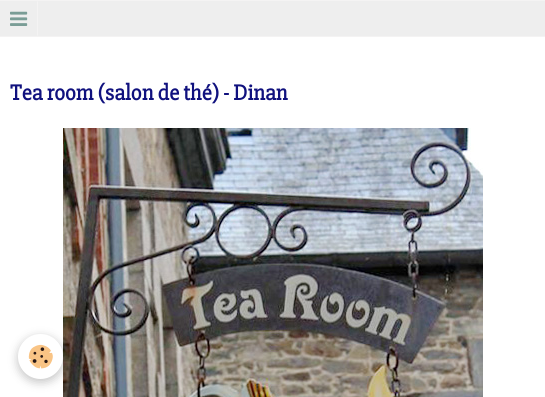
#include <cairo.h>
#include <math.h>
#include <stddef.h>

typedef struct { const char *family; double size; int italic, bold; unsigned color; } style_t;
static cairo_t *ctx;

static void ink(unsigned color) {
    cairo_set_source_rgb(ctx, (color >> 16) / 255.0, (color >> 8 & 255) / 255.0, (color & 255) / 255.0);
}

static void write(double x, double y, const char *s, const style_t *st) {
    cairo_select_font_face(ctx, st->family, st->italic ? CAIRO_FONT_SLANT_ITALIC : CAIRO_FONT_SLANT_NORMAL,
        st->bold ? CAIRO_FONT_WEIGHT_BOLD : CAIRO_FONT_WEIGHT_NORMAL);
    cairo_set_font_size(ctx, st->size);
    ink(st->color);
    cairo_move_to(ctx, x, y);
    cairo_show_text(ctx, s);
}

static void block(double x, double y, double w, double h, unsigned color) {
    ink(color);
    cairo_rectangle(ctx, x, y, w, h);
    cairo_fill(ctx);
}

static void round_path(double x, double y, double w, double h, double r) {
    cairo_new_sub_path(ctx);
    cairo_arc(ctx, x + w - r, y + h - r, r, 0, M_PI / 2);
    cairo_arc(ctx, x + r, y + h - r, r, M_PI / 2, M_PI);
    cairo_arc(ctx, x + r, y + r, r, M_PI, 1.5 * M_PI);
    cairo_arc(ctx, x + w - r, y + r, r, 1.5 * M_PI, 2 * M_PI);
    cairo_close_path(ctx);
}

static void blur_box(double x, double y, double w, double h, double r, double blur, double alpha) {
    cairo_push_group_with_content(ctx, CAIRO_CONTENT_ALPHA);
    cairo_set_operator(ctx, CAIRO_OPERATOR_SOURCE);
    for (int i = 15; i >= -15 && fmin(w, h) + blur * i / 3 > 0; i -= 2) {
        double e = blur * i / 6;
        cairo_set_source_rgba(ctx, 0, 0, 0, alpha * erfc((i - 1) / 8.5) / 2);
        round_path(x - e, y - e, w + 2 * e, h + 2 * e, fmax(0, fmin(r + e + blur * .6, fmin(w, h) / 2 + e)));
        cairo_fill(ctx);
    }
    cairo_pattern_t *soft = cairo_pop_group(ctx);
    cairo_mask(ctx, soft);
    cairo_pattern_destroy(soft);
}

static void paste(const char *path, double x, double y, double w, double h) {
    cairo_surface_t *image = cairo_image_surface_create_from_png(path);
    cairo_save(ctx);
    cairo_set_source_surface(ctx, image, x, y);
    cairo_rectangle(ctx, x, y, w, h);
    cairo_fill(ctx);
    cairo_restore(ctx);
    cairo_surface_destroy(image);
}

static const style_t s1 = {"Slabo 27px", 22.5, 0, 1, 0x10117e};

int main(void) {
    cairo_surface_t *surface = cairo_image_surface_create(CAIRO_FORMAT_RGB24, 545, 397);
    ctx = cairo_create(surface);
    cairo_font_options_t *options = cairo_font_options_create();
    cairo_font_options_set_hint_metrics(options, CAIRO_HINT_METRICS_OFF);
    cairo_font_options_set_hint_style(options, CAIRO_HINT_STYLE_NONE);
    cairo_set_font_options(ctx, options);
    cairo_set_miter_limit(ctx, 4);
    ink(0xffffff);
    cairo_paint(ctx);
    block(0, 1, 545, 35, 0xeeeeee);
    block(0, 0, 545, 1, 0xf4f3f3);
    block(0, 36, 545, 1, 0xf4f3f3);
    cairo_new_path(ctx);
    cairo_move_to(ctx, 38, 1);
    cairo_line_to(ctx, 38, 36);
    cairo_line_to(ctx, 37, 35);
    cairo_line_to(ctx, 37, 2);
    cairo_close_path(ctx);
    cairo_fill(ctx);
    paste("pic1.png", 10, 11, 18, 15);
    write(10, 100, "Tea room (salon de thé) - Dinan", &s1);
    paste("pic2.png", 63, 128, 420, 269);
    ink(0x000000);
    blur_box(18, 337, 45, 45, 22.5, 5, 0.24);
    ink(0xffffff);
    cairo_arc(ctx, 40.5, 356.5, 22.5, 0, 2 * M_PI);
    cairo_fill(ctx);
    paste("pic3.png", 28, 344, 25, 25);
    cairo_surface_write_to_png(surface, "screenshot.png");
    cairo_font_options_destroy(options);
    cairo_destroy(ctx);
    cairo_surface_destroy(surface);
    return 0;
}
